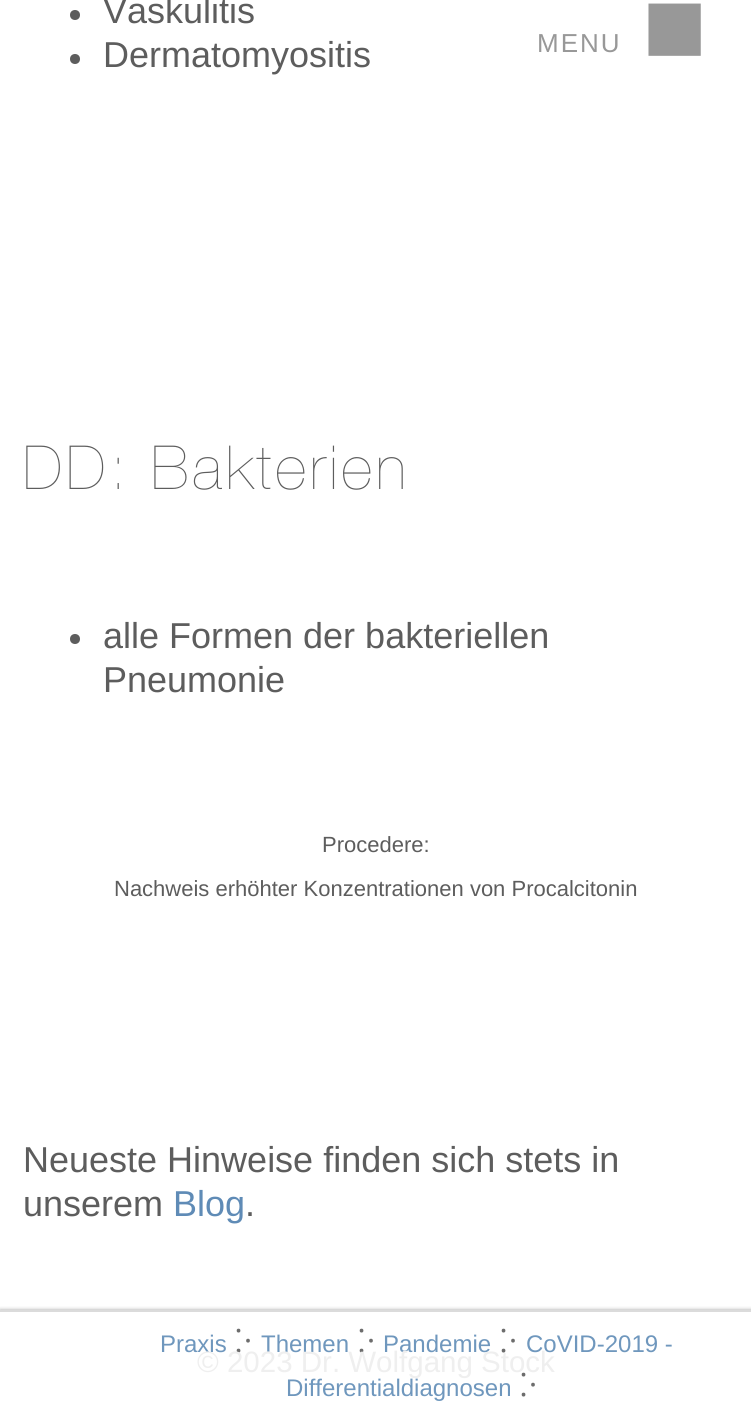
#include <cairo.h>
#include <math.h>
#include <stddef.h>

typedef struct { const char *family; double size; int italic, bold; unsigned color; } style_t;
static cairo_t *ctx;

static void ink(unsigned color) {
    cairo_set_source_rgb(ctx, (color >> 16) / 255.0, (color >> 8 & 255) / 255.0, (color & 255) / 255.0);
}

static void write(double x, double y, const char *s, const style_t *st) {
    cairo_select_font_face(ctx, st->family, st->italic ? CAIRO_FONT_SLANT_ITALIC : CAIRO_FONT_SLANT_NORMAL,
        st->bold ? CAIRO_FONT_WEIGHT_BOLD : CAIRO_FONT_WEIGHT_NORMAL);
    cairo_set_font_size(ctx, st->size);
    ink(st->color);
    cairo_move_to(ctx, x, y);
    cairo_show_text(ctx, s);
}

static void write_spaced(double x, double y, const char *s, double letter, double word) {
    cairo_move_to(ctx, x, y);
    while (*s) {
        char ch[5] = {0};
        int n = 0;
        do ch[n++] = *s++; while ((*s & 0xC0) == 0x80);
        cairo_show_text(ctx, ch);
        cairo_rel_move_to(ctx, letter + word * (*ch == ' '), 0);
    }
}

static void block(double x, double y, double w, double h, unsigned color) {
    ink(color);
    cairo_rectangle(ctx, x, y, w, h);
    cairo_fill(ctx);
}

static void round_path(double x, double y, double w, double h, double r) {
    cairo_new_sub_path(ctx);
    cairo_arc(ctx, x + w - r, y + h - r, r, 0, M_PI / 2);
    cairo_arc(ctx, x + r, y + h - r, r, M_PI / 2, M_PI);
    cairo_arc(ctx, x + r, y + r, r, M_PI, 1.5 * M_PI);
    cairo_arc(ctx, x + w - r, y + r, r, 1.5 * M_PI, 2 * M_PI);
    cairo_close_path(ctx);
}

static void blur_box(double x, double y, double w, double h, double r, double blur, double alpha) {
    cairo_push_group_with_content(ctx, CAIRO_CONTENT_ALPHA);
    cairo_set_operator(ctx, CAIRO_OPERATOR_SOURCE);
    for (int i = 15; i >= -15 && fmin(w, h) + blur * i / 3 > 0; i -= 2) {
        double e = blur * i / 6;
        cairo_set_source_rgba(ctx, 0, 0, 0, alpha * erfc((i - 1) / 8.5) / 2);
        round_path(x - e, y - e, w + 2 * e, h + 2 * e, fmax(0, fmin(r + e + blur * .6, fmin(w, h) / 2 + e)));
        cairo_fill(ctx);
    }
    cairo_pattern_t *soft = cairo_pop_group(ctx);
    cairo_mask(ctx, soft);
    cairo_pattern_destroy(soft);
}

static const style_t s1 = {"Liberation Sans", 36, 0, 0, 0x5d5d5d};
static const style_t s2 = {"Liberation Sans", 22, 0, 0, 0x5d5d5d};
static const style_t s3 = {"Liberation Sans", 36, 0, 0, 0x5f8bb6};
static const style_t s4 = {"Liberation Sans", 108, 0, 0, 0x989898};
static const style_t s5 = {"Liberation Sans", 24, 0, 0, 0x6f97bd};
static const style_t s6 = {"Noto Sans", 32, 0, 0, 0x6d6d6d};
static const style_t s7 = {"Liberation Sans", 29.5, 0, 0, 0xefefef};

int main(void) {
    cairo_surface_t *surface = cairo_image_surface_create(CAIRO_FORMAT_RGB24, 751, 1415);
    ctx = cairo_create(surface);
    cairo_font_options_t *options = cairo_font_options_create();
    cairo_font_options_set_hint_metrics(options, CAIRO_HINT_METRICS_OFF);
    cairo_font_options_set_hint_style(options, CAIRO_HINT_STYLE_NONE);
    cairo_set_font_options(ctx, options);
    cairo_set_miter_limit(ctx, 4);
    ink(0xffffff);
    cairo_paint(ctx);
    ink(0x5d5d5d);
    cairo_arc(ctx, 75, 15, 5, 0, 2 * M_PI);
    cairo_fill(ctx);
    write(103, 23, "Vaskulitis", &s1);
    cairo_new_path(ctx);
    cairo_arc(ctx, 75, 59, 5, 0, 2 * M_PI);
    cairo_fill(ctx);
    write(103, 67, "Dermatomyositis", &s1);
    cairo_select_font_face(ctx, "Helvetica Neue ExtraLight", CAIRO_FONT_SLANT_NORMAL, CAIRO_FONT_WEIGHT_NORMAL);
    cairo_set_font_size(ctx, 60.75);
    write_spaced(23, 489, "DD: Bakterien", 4, 0);
    cairo_new_path(ctx);
    cairo_arc(ctx, 75, 639, 5, 0, 2 * M_PI);
    cairo_fill(ctx);
    write(103, 648, "alle Formen der bakteriellen", &s1);
    write(103, 692, "Pneumonie", &s1);
    write(322, 852, "Procedere:", &s2);
    write(114, 896, "Nachweis erhöhter Konzentrationen von Procalcitonin", &s2);
    write(23, 1172, "Neueste Hinweise finden sich stets in", &s1);
    write(23, 1216, "unserem", &s1);
    write(173, 1216, "Blog", &s3);
    write(245, 1216, ".", &s1);
    cairo_set_font_size(ctx, 26);
    ink(0x989898);
    write_spaced(537, 52, "MENU", 2, 0);
    write(642, 62, "■", &s4);
    cairo_save(ctx);
    cairo_rectangle(ctx, 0, 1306, 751, 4);
    cairo_clip(ctx);
    ink(0xa1a1a1);
    blur_box(0, 1310, 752, 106, 0, 2, 1);
    cairo_restore(ctx);
    block(0, 1310, 751, 2, 0xdbdbdb);
    write(160, 1352, "Praxis", &s5);
    write(235, 1352, "჻", &s6);
    write(261, 1352, "Themen", &s5);
    write(358, 1352, "჻", &s6);
    write(383, 1352, "Pandemie", &s5);
    write(500, 1352, "჻", &s6);
    write(526, 1352, "CoVID-2019 -", &s5);
    write(286, 1396, "Differentialdiagnosen", &s5);
    write(520, 1396, "჻", &s6);
    write(197, 1372, "© 2023 Dr. Wolfgang Stock", &s7);
    cairo_surface_write_to_png(surface, "screenshot.png");
    cairo_font_options_destroy(options);
    cairo_destroy(ctx);
    cairo_surface_destroy(surface);
    return 0;
}
